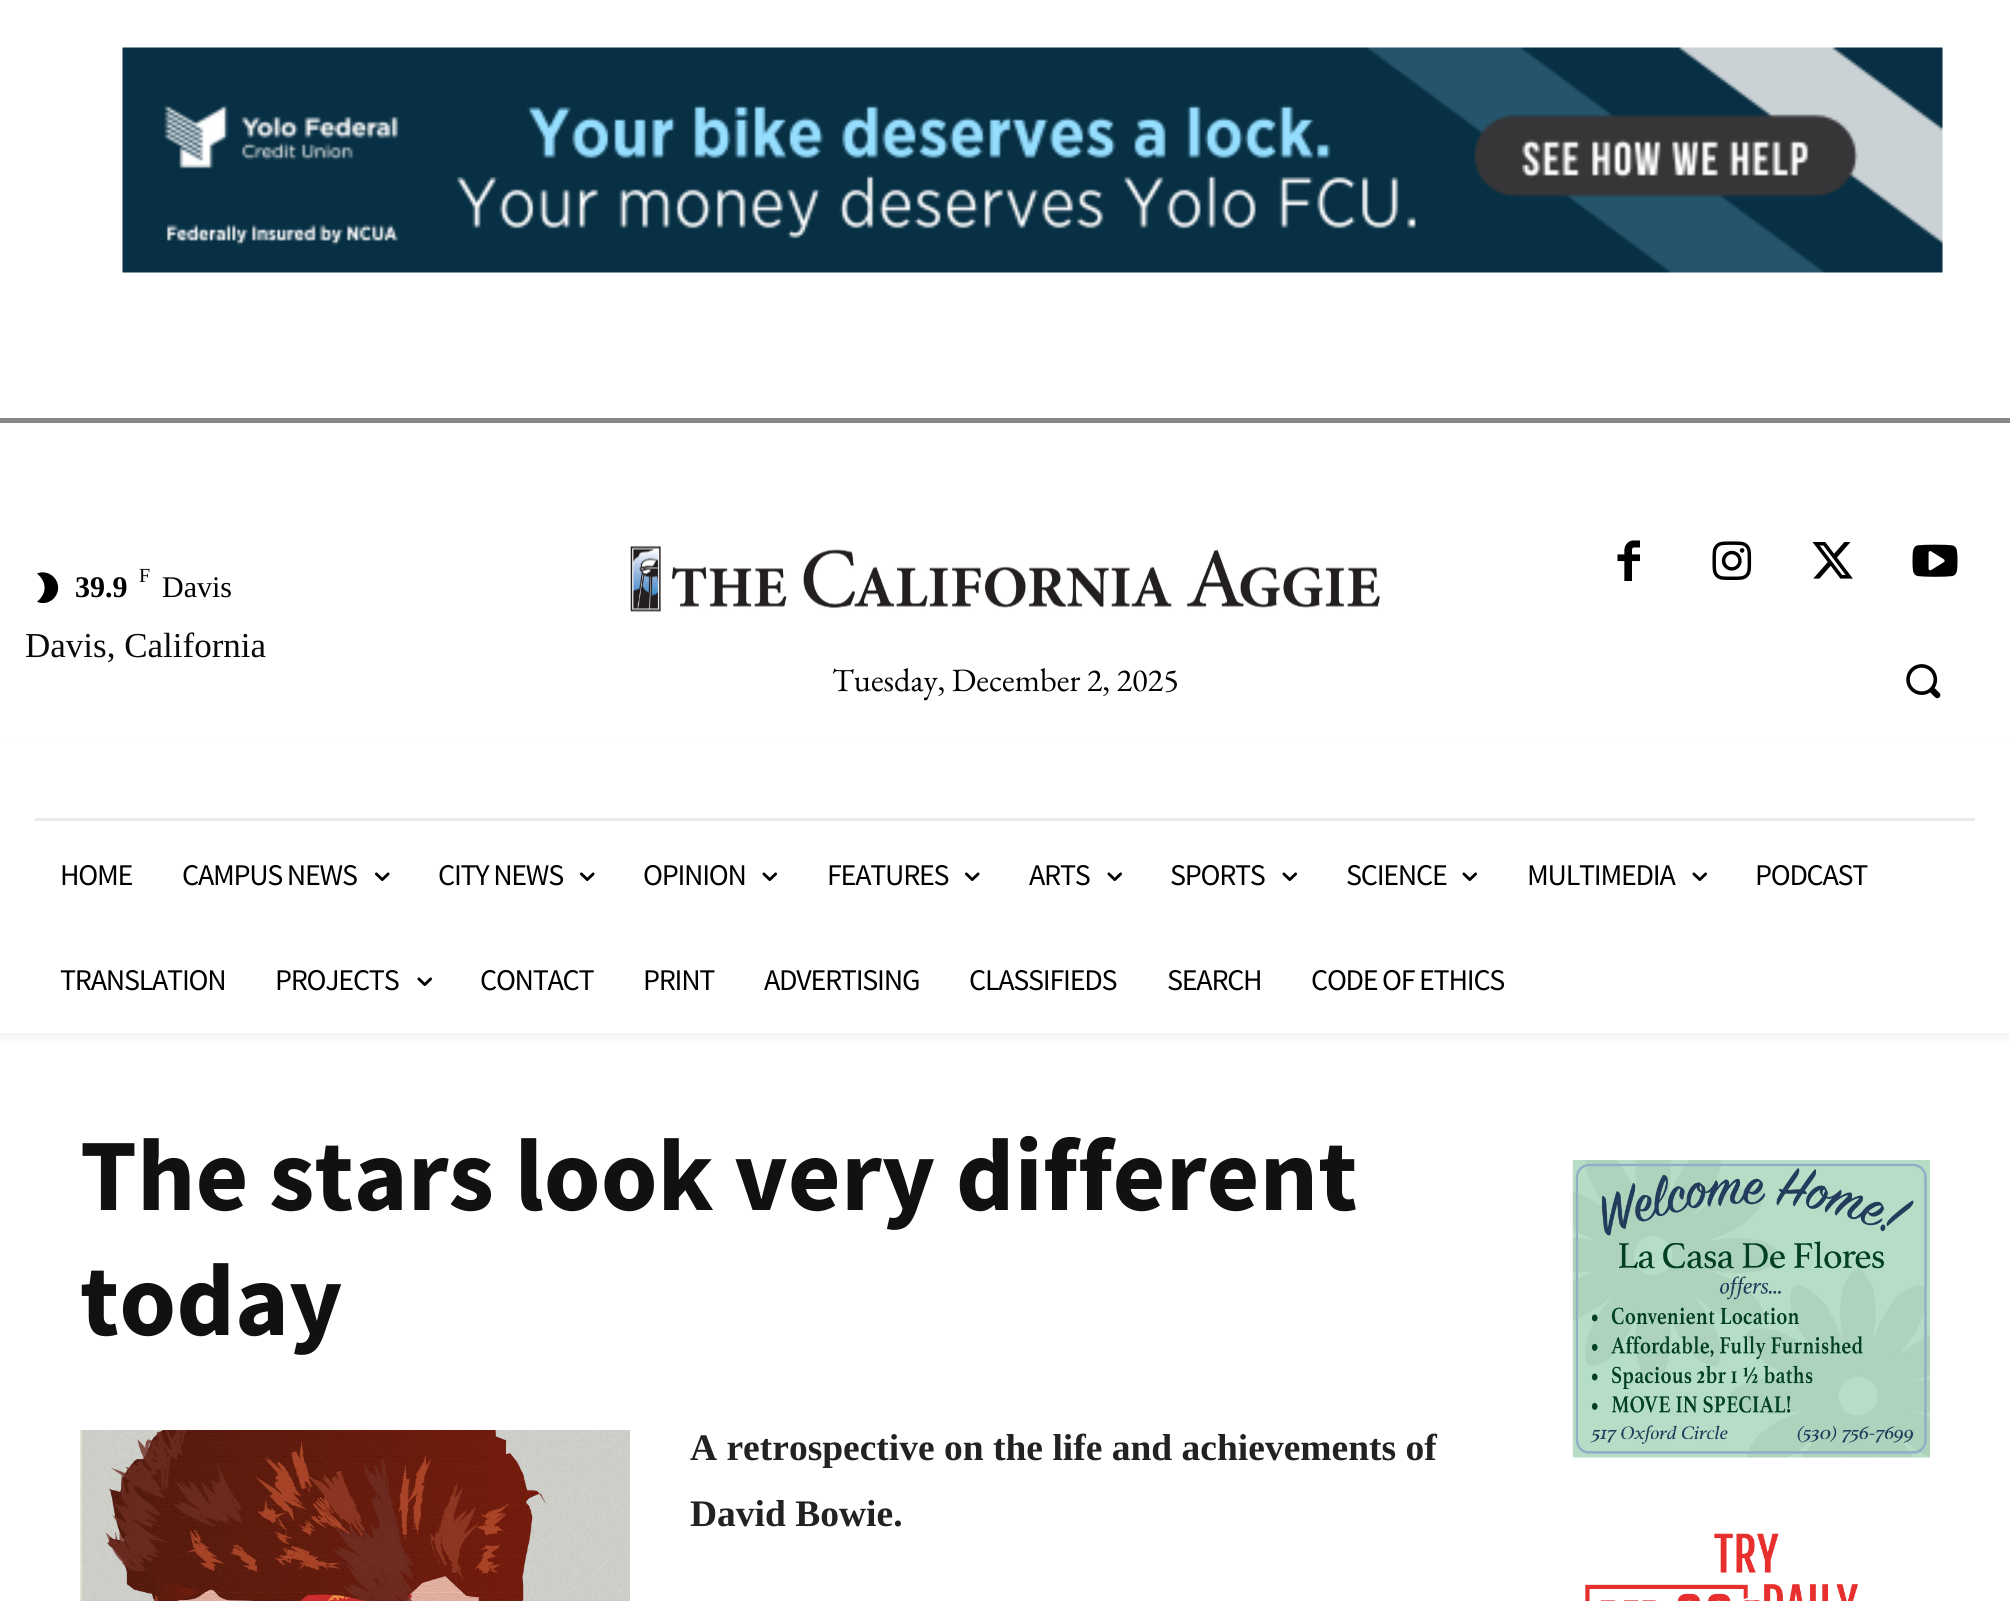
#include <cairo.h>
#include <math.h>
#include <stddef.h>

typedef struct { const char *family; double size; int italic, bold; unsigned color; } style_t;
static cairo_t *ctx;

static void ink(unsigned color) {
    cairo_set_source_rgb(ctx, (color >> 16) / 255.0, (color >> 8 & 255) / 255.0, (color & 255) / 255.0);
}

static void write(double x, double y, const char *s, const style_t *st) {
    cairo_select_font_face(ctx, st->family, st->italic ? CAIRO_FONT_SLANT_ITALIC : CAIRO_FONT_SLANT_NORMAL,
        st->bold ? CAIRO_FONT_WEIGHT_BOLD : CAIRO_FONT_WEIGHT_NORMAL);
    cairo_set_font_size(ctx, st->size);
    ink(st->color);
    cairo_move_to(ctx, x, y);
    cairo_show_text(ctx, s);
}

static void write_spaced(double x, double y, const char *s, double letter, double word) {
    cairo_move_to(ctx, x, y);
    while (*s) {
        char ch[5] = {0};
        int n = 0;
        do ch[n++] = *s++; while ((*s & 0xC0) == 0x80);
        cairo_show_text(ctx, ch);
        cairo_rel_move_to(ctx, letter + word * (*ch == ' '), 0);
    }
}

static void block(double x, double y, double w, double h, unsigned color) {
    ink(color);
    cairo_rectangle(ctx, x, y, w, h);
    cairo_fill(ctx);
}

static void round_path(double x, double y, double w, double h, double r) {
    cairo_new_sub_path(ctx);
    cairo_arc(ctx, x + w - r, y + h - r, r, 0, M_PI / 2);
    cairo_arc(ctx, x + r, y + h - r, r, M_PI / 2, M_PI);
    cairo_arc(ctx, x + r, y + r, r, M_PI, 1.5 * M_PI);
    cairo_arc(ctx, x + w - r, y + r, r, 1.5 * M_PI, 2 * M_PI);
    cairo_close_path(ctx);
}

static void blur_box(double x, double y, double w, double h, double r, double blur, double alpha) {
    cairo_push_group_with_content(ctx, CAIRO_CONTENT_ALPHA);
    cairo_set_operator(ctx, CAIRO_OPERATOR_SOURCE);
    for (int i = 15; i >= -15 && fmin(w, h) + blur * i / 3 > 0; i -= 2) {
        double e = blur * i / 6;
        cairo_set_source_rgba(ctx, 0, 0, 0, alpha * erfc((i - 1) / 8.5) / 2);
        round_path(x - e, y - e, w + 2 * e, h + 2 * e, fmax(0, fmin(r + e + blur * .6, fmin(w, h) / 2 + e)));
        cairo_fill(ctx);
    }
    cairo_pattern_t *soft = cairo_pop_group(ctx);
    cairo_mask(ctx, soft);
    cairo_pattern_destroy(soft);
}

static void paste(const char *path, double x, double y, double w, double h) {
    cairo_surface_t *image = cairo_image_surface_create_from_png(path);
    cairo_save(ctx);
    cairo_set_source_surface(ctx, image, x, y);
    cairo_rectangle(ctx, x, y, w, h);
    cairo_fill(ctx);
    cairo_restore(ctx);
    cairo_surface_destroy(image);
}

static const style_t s1 = {"Liberation Serif", 20, 0, 0, 0x000000};
static const style_t s2 = {"Liberation Serif", 30, 0, 1, 0x000000};
static const style_t s3 = {"Liberation Serif", 30, 0, 0, 0x000000};
static const style_t s4 = {"Liberation Serif", 35, 0, 0, 0x0a0a0a};
static const style_t s5 = {"EB Garamond", 32.5, 0, 0, 0x000000};
static const style_t s6 = {"Source Sans Pro", 102.5, 0, 1, 0x111111};
static const style_t s7 = {"Liberation Serif", 37.5, 0, 1, 0x222222};

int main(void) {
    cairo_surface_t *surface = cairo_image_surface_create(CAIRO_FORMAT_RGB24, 2010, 1601);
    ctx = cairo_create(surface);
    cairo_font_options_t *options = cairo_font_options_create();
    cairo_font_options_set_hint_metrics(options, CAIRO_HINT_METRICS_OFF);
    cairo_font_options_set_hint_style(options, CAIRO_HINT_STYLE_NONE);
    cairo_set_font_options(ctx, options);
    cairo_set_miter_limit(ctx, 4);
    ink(0xffffff);
    cairo_paint(ctx);
    paste("pic1.png", 122, 47, 1821, 226);
    block(0, 418, 2010, 5, 0x888888);
    paste("pic2.png", 37, 572, 22, 32);
    write(139, 582, "F", &s1);
    write(75, 597, "39.9", &s2);
    write(162, 597, "Davis", &s3);
    write(25, 657, "Davis, California", &s4);
    paste("pic3.png", 1617, 540, 23, 41);
    paste("pic4.png", 1712, 541, 40, 39);
    paste("pic5.png", 1812, 542, 41, 37);
    paste("pic6.png", 1912, 544, 46, 33);
    paste("pic7.png", 1906, 664, 35, 35);
    paste("pic8.png", 630, 545, 750, 67);
    write(832, 691, "Tuesday, December 2, 2025", &s5);
    block(35, 818, 1940, 3, 0xeaeaea);
    cairo_save(ctx);
    cairo_set_fill_rule(ctx, CAIRO_FILL_RULE_EVEN_ODD);
    cairo_new_path(ctx);
    cairo_move_to(ctx, 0, 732);
    cairo_line_to(ctx, 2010, 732);
    cairo_line_to(ctx, 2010, 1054);
    cairo_line_to(ctx, 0, 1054);
    cairo_close_path(ctx);
    cairo_move_to(ctx, 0, 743);
    cairo_line_to(ctx, 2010, 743);
    cairo_line_to(ctx, 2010, 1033);
    cairo_line_to(ctx, 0, 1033);
    cairo_close_path(ctx);
    cairo_clip(ctx);
    ink(0x000000);
    blur_box(0, 748, 2010, 290, 0, 5, 0.06);
    cairo_restore(ctx);
    cairo_select_font_face(ctx, "Source Sans Pro", CAIRO_FONT_SLANT_NORMAL, CAIRO_FONT_WEIGHT_NORMAL);
    cairo_set_font_size(ctx, 30);
    ink(0x000000);
    write_spaced(60, 885, "HOME", -1.25, 0);
    write_spaced(182, 885, "CAMPUS NEWS", -1.25, 0);
    paste("pic9.png", 375, 872, 15, 9);
    write_spaced(438, 885, "CITY NEWS", -1.25, 0);
    paste("pic9.png", 580, 872, 15, 9);
    write_spaced(643, 885, "OPINION", -1.25, 0);
    paste("pic10.png", 762, 872, 15, 9);
    write_spaced(827, 885, "FEATURES", -1.25, 0);
    paste("pic9.png", 965, 872, 15, 9);
    write_spaced(1029, 885, "ARTS", -1.25, 0);
    paste("pic10.png", 1107, 872, 15, 9);
    write_spaced(1170, 885, "SPORTS", -1.25, 0);
    paste("pic10.png", 1282, 872, 15, 9);
    write_spaced(1346, 885, "SCIENCE", -1.25, 0);
    paste("pic10.png", 1462, 872, 15, 9);
    write_spaced(1527, 885, "MULTIMEDIA", -1.25, 0);
    paste("pic10.png", 1692, 872, 15, 9);
    write_spaced(1755, 885, "PODCAST", -1.25, 0);
    write_spaced(60, 990, "TRANSLATION", -1.25, 0);
    write_spaced(275, 990, "PROJECTS", -1.25, 0);
    paste("pic10.png", 417, 977, 15, 9);
    write_spaced(480, 990, "CONTACT", -1.25, 0);
    write_spaced(643, 990, "PRINT", -1.25, 0);
    write_spaced(764, 990, "ADVERTISING", -1.25, 0);
    write_spaced(969, 990, "CLASSIFIEDS", -1.25, 0);
    write_spaced(1167, 990, "SEARCH", -1.25, 0);
    write_spaced(1311, 990, "CODE OF ETHICS", -1.25, 0);
    write(80, 1210, "The stars look very different", &s6);
    write(80, 1335, "today", &s6);
    paste("pic11.png", 80, 1430, 550, 171);
    write(690, 1460, "A retrospective on the life and achievements of", &s7);
    write(690, 1526, "David Bowie.", &s7);
    paste("pic12.png", 1572, 1160, 358, 298);
    paste("pic13.png", 1585, 1533, 273, 68);
    cairo_surface_write_to_png(surface, "screenshot.png");
    cairo_font_options_destroy(options);
    cairo_destroy(ctx);
    cairo_surface_destroy(surface);
    return 0;
}
